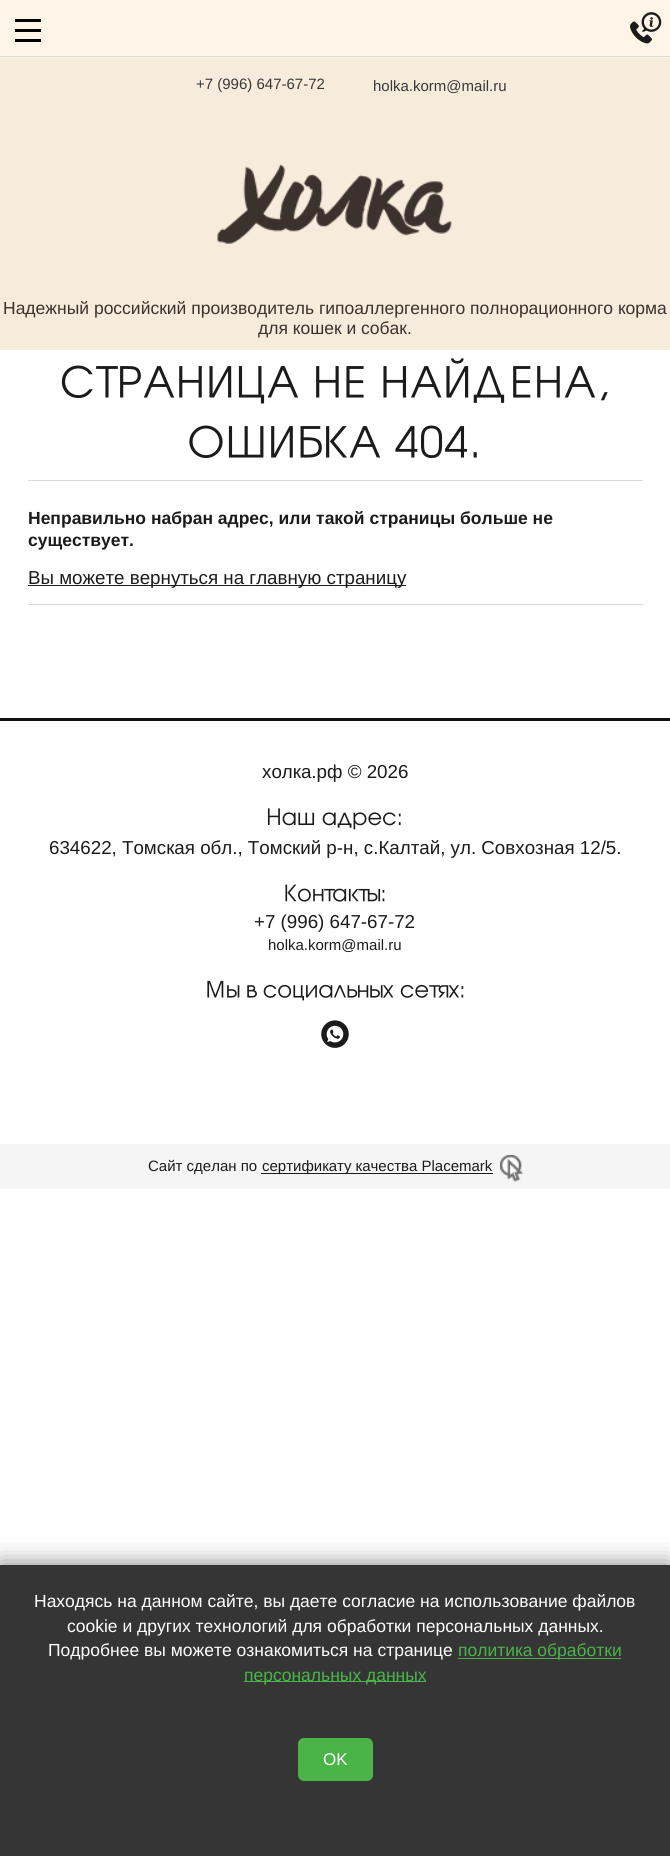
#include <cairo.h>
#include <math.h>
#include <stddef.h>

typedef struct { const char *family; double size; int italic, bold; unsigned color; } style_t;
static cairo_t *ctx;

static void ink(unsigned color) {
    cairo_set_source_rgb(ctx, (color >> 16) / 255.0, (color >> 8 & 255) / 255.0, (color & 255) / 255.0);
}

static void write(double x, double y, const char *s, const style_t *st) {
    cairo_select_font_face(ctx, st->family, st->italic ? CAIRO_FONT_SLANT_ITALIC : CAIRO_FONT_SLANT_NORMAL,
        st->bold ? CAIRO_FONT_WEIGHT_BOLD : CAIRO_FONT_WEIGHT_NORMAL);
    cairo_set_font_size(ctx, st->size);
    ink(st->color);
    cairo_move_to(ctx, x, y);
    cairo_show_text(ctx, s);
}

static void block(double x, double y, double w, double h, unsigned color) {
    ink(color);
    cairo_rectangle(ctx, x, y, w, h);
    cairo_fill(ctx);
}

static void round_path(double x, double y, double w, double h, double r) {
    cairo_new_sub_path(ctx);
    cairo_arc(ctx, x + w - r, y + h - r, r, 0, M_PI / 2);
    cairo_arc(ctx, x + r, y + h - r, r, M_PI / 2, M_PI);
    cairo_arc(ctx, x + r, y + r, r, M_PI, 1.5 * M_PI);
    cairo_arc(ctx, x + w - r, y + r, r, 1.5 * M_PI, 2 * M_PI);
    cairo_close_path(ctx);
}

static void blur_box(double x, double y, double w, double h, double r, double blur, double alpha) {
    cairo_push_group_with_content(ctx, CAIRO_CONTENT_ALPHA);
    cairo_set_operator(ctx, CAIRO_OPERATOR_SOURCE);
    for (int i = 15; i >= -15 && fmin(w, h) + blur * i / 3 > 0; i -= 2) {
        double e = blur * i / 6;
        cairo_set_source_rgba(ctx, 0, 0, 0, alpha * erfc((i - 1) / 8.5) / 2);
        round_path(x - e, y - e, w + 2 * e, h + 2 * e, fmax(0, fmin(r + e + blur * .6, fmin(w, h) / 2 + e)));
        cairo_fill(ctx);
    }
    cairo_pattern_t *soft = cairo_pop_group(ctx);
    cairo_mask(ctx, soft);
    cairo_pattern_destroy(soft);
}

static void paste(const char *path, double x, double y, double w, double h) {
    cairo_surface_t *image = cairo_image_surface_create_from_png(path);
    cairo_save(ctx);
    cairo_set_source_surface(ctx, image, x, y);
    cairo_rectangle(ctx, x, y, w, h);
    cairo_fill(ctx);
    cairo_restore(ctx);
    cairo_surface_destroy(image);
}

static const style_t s1 = {"Liberation Sans", 15, 0, 0, 0x383838};
static const style_t s2 = {"Liberation Sans", 17.5, 0, 0, 0x3b322e};
static const style_t s3 = {"Liberation Sans", 17.5, 0, 1, 0x1c1b1b};
static const style_t s4 = {"Liberation Sans", 18.75, 0, 0, 0x1c1b1b};
static const style_t s5 = {"Liberation Sans", 15, 0, 0, 0x1c1b1b};
static const style_t s6 = {"Liberation Sans", 17.5, 0, 0, 0xffffff};
static const style_t s7 = {"Liberation Sans", 17.5, 0, 0, 0x4bb449};
static const style_t s8 = {"Liberation Sans", 17, 0, 0, 0xffffff};

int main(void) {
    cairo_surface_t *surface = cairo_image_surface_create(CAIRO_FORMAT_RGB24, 670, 1856);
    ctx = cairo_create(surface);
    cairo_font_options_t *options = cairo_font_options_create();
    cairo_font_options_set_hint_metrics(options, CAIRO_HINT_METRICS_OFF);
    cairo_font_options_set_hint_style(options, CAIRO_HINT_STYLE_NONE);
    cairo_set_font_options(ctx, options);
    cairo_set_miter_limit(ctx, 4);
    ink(0xffffff);
    cairo_paint(ctx);
    block(0, 0, 670, 58, 0xfff4e8);
    block(15, 29, 26, 3, 0x000000);
    block(15, 19, 26, 3, 0x000000);
    block(15, 39, 26, 3, 0x000000);
    paste("pic1.png", 630, 12, 32, 32);
    block(0, 56, 670, 1, 0xd9d9d9);
    block(0, 58, 670, 292, 0xf7ebdb);
    write(196, 89, "+7 (996) 647-67-72", &s1);
    write(373, 91, "holka.korm@mail.ru", &s1);
    paste("pic2.png", 217, 164, 235, 80);
    write(3, 314, "Надежный российский производитель гипоаллергенного полнорационного корма", &s2);
    write(258, 334, "для кошек и собак.", &s2);
    block(28, 480, 615, 1, 0xd9d9d9);
    paste("pic3.png", 61, 358, 547, 46);
    paste("pic4.png", 189, 425, 288, 34);
    block(28, 604, 615, 1, 0xd9d9d9);
    write(28, 524, "Неправильно набран адрес, или такой страницы больше не", &s3);
    write(28, 546, "существует.", &s3);
    block(28, 585, 378, 1, 0x1c1b1b);
    write(28, 584, "Вы можете вернуться на главную страницу", &s4);
    block(0, 718, 670, 3, 0x111111);
    write(262, 778, "холка.рф © 2026", &s4);
    paste("pic5.png", 267, 808, 134, 22);
    write(49, 854, "634622, Томская обл., Томский р-н, с.Калтай, ул. Совхозная 12/5.", &s4);
    paste("pic6.png", 285, 884, 100, 18);
    write(254, 928, "+7 (996) 647-67-72", &s4);
    write(268, 950, "holka.korm@mail.ru", &s5);
    paste("pic7.png", 207, 980, 257, 21);
    paste("pic8.png", 321, 1020, 28, 28);
    block(0, 1144, 670, 45, 0xf5f5f5);
    write(148, 1171, "Сайт сделан по", &s5);
    block(261, 1173, 232, 1, 0x1c1b1b);
    write(262, 1171, "сертификату качества Placemark", &s5);
    paste("pic9.png", 500, 1155, 23, 27);
    ink(0x000000);
    blur_box(0, 1565, 670, 291, 0, 12.5, 0.5);
    block(0, 1565, 670, 291, 0x353535);
    write(34, 1607, "Находясь на данном сайте, вы даете согласие на использование файлов", &s6);
    write(67, 1632, "cookie и других технологий для обработки персональных данных.", &s6);
    write(48, 1656, "Подробнее вы можете ознакомиться на странице", &s6);
    block(458, 1658, 163, 1, 0x4bb449);
    write(458, 1656, "политика обработки", &s7);
    block(244, 1681, 182, 1, 0x4bb449);
    write(244, 1681, "персональных данных", &s7);
    round_path(298, 1738, 75, 43, 6);
    cairo_fill(ctx);
    write(323, 1765, "OK", &s8);
    cairo_surface_write_to_png(surface, "screenshot.png");
    cairo_font_options_destroy(options);
    cairo_destroy(ctx);
    cairo_surface_destroy(surface);
    return 0;
}
